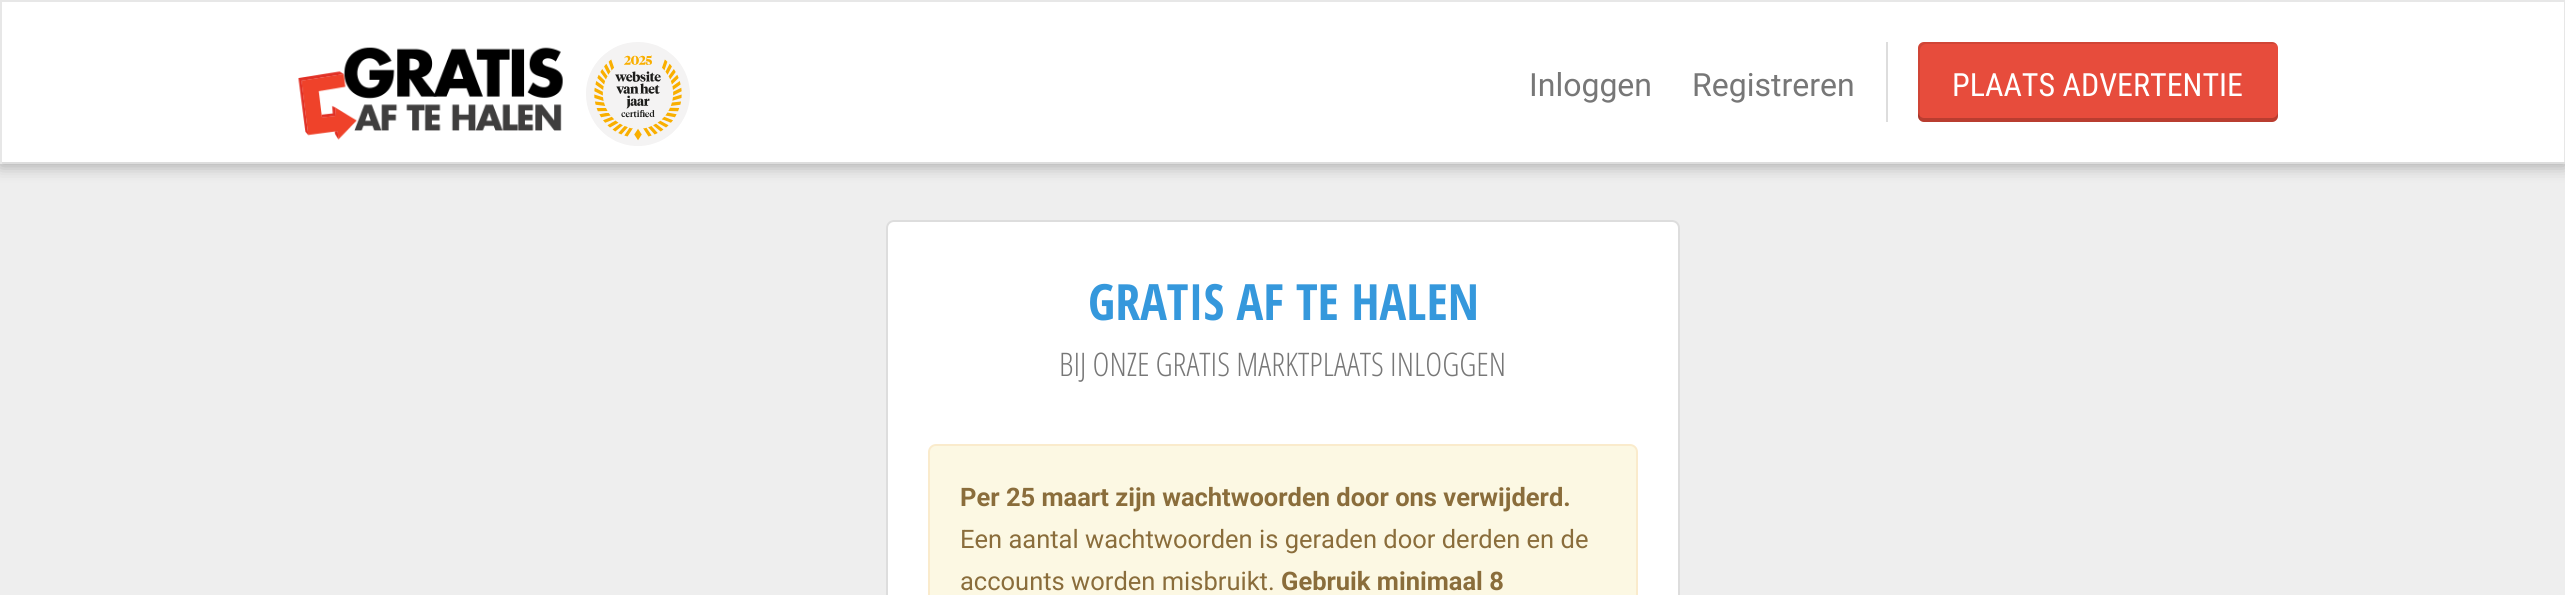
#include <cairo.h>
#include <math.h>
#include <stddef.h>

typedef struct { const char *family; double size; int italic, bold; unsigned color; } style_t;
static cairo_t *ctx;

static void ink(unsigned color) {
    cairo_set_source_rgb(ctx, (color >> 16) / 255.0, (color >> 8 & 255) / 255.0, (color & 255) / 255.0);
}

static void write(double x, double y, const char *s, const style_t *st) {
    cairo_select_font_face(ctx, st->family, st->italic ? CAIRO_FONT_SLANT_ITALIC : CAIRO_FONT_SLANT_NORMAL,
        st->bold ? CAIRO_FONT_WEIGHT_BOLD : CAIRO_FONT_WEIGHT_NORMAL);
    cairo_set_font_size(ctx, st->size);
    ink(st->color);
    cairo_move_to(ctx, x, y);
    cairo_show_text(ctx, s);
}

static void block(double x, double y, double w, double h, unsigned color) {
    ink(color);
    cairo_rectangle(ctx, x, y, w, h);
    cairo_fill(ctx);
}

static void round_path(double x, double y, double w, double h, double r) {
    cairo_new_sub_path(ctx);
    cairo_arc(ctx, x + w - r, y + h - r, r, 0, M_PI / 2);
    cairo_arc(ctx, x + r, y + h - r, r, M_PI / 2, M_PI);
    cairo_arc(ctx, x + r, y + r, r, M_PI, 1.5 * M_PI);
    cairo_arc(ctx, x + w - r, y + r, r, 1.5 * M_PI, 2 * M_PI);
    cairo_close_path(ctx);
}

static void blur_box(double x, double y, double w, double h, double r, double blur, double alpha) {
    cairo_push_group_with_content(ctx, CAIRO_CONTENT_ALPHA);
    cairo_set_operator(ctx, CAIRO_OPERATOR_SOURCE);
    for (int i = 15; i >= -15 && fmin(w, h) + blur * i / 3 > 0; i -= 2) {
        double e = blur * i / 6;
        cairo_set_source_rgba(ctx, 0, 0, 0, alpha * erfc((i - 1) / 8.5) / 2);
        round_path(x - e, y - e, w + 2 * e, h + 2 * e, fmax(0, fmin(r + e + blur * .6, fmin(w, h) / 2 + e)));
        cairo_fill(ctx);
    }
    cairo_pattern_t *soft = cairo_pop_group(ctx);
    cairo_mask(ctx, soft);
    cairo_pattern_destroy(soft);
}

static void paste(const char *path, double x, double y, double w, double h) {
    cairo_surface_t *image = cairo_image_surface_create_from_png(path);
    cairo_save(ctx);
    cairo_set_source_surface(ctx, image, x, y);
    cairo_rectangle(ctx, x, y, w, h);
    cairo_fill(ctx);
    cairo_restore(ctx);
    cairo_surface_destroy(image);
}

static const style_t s1 = {"Roboto", 32, 0, 0, 0x777777};
static const style_t s2 = {"Roboto Condensed", 32, 0, 0, 0xffffff};
static const style_t s3 = {"Open Sans Condensed", 50, 0, 1, 0x3598dc};
static const style_t s4 = {"Open Sans Condensed Light", 32.5, 0, 0, 0x777777};
static const style_t s5 = {"Roboto", 25.5, 0, 1, 0x8a6d3b};
static const style_t s6 = {"Roboto", 25.5, 0, 0, 0x8a6d3b};

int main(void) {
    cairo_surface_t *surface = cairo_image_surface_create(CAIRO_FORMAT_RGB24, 2565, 595);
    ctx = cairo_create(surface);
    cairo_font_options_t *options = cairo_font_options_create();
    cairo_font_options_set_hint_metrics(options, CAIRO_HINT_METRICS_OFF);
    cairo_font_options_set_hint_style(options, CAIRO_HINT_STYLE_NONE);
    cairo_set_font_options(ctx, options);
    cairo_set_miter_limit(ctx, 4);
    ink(0xeeeeee);
    cairo_paint(ctx);
    ink(0x000000);
    blur_box(0, 2, 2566, 164, 0, 8, 0.3);
    block(2, 2, 2562, 160, 0xffffff);
    block(0, 0, 2565, 2, 0xe7e7e7);
    block(2564, 0, 1, 164, 0xe7e7e7);
    block(0, 162, 2565, 2, 0xdddddd);
    block(0, 0, 2, 164, 0xe7e7e7);
    paste("pic1.png", 298, 47, 265, 93);
    paste("pic2.png", 586, 42, 104, 104);
    write(1529, 96, "Inloggen", &s1);
    write(1692, 96, "Registreren", &s1);
    block(1886, 42, 2, 80, 0xdddddd);
    ink(0xe74c3c);
    round_path(1918, 42, 360, 80, 6);
    cairo_fill(ctx);
    cairo_set_source_rgba(ctx, 0, 0, 0, 0.1);
    cairo_new_path(ctx);
    cairo_move_to(ctx, 1926, 44);
    cairo_line_to(ctx, 2274, 44);
    cairo_curve_to(ctx, 2275, 44, 2276, 44, 2277, 45);
    cairo_curve_to(ctx, 2276, 43, 2274, 42, 2272, 42);
    cairo_line_to(ctx, 1924, 42);
    cairo_curve_to(ctx, 1921, 42, 1918, 45, 1918, 48);
    cairo_line_to(ctx, 1918, 116);
    cairo_curve_to(ctx, 1918, 118, 1919, 120, 1921, 121);
    cairo_curve_to(ctx, 1920, 120, 1920, 119, 1920, 118);
    cairo_line_to(ctx, 1920, 50);
    cairo_curve_to(ctx, 1920, 47, 1923, 44, 1926, 44);
    cairo_close_path(ctx);
    cairo_fill(ctx);
    cairo_set_source_rgba(ctx, 0, 0, 0, 0.2);
    cairo_new_path(ctx);
    cairo_move_to(ctx, 1918, 112);
    cairo_line_to(ctx, 1918, 116);
    cairo_curve_to(ctx, 1918, 119, 1921, 122, 1924, 122);
    cairo_line_to(ctx, 2272, 122);
    cairo_curve_to(ctx, 2275, 122, 2278, 119, 2278, 116);
    cairo_line_to(ctx, 2278, 112);
    cairo_curve_to(ctx, 2278, 115, 2275, 118, 2272, 118);
    cairo_line_to(ctx, 1924, 118);
    cairo_curve_to(ctx, 1921, 118, 1918, 115, 1918, 112);
    cairo_close_path(ctx);
    cairo_fill(ctx);
    write(1952, 96, "PLAATS ADVERTENTIE", &s2);
    round_path(887, 221, 792, 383, 7);
    cairo_fill_preserve(ctx);
    ink(0xdddddd);
    cairo_stroke(ctx);
    write(1088, 320, "GRATIS AF TE HALEN", &s3);
    write(1059, 376, "BIJ ONZE GRATIS MARKTPLAATS INLOGGEN", &s4);
    ink(0xfcf8e3);
    round_path(929, 445, 708, 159, 7);
    cairo_fill_preserve(ctx);
    ink(0xfaebcc);
    cairo_stroke(ctx);
    write(960, 506, "Per 25 maart zijn wachtwoorden door ons verwijderd.", &s5);
    write(960, 548, "Een aantal wachtwoorden is geraden door derden en de", &s6);
    write(960, 590, "accounts worden misbruikt.", &s6);
    write(1281, 590, "Gebruik minimaal 8", &s5);
    cairo_surface_write_to_png(surface, "screenshot.png");
    cairo_font_options_destroy(options);
    cairo_destroy(ctx);
    cairo_surface_destroy(surface);
    return 0;
}
